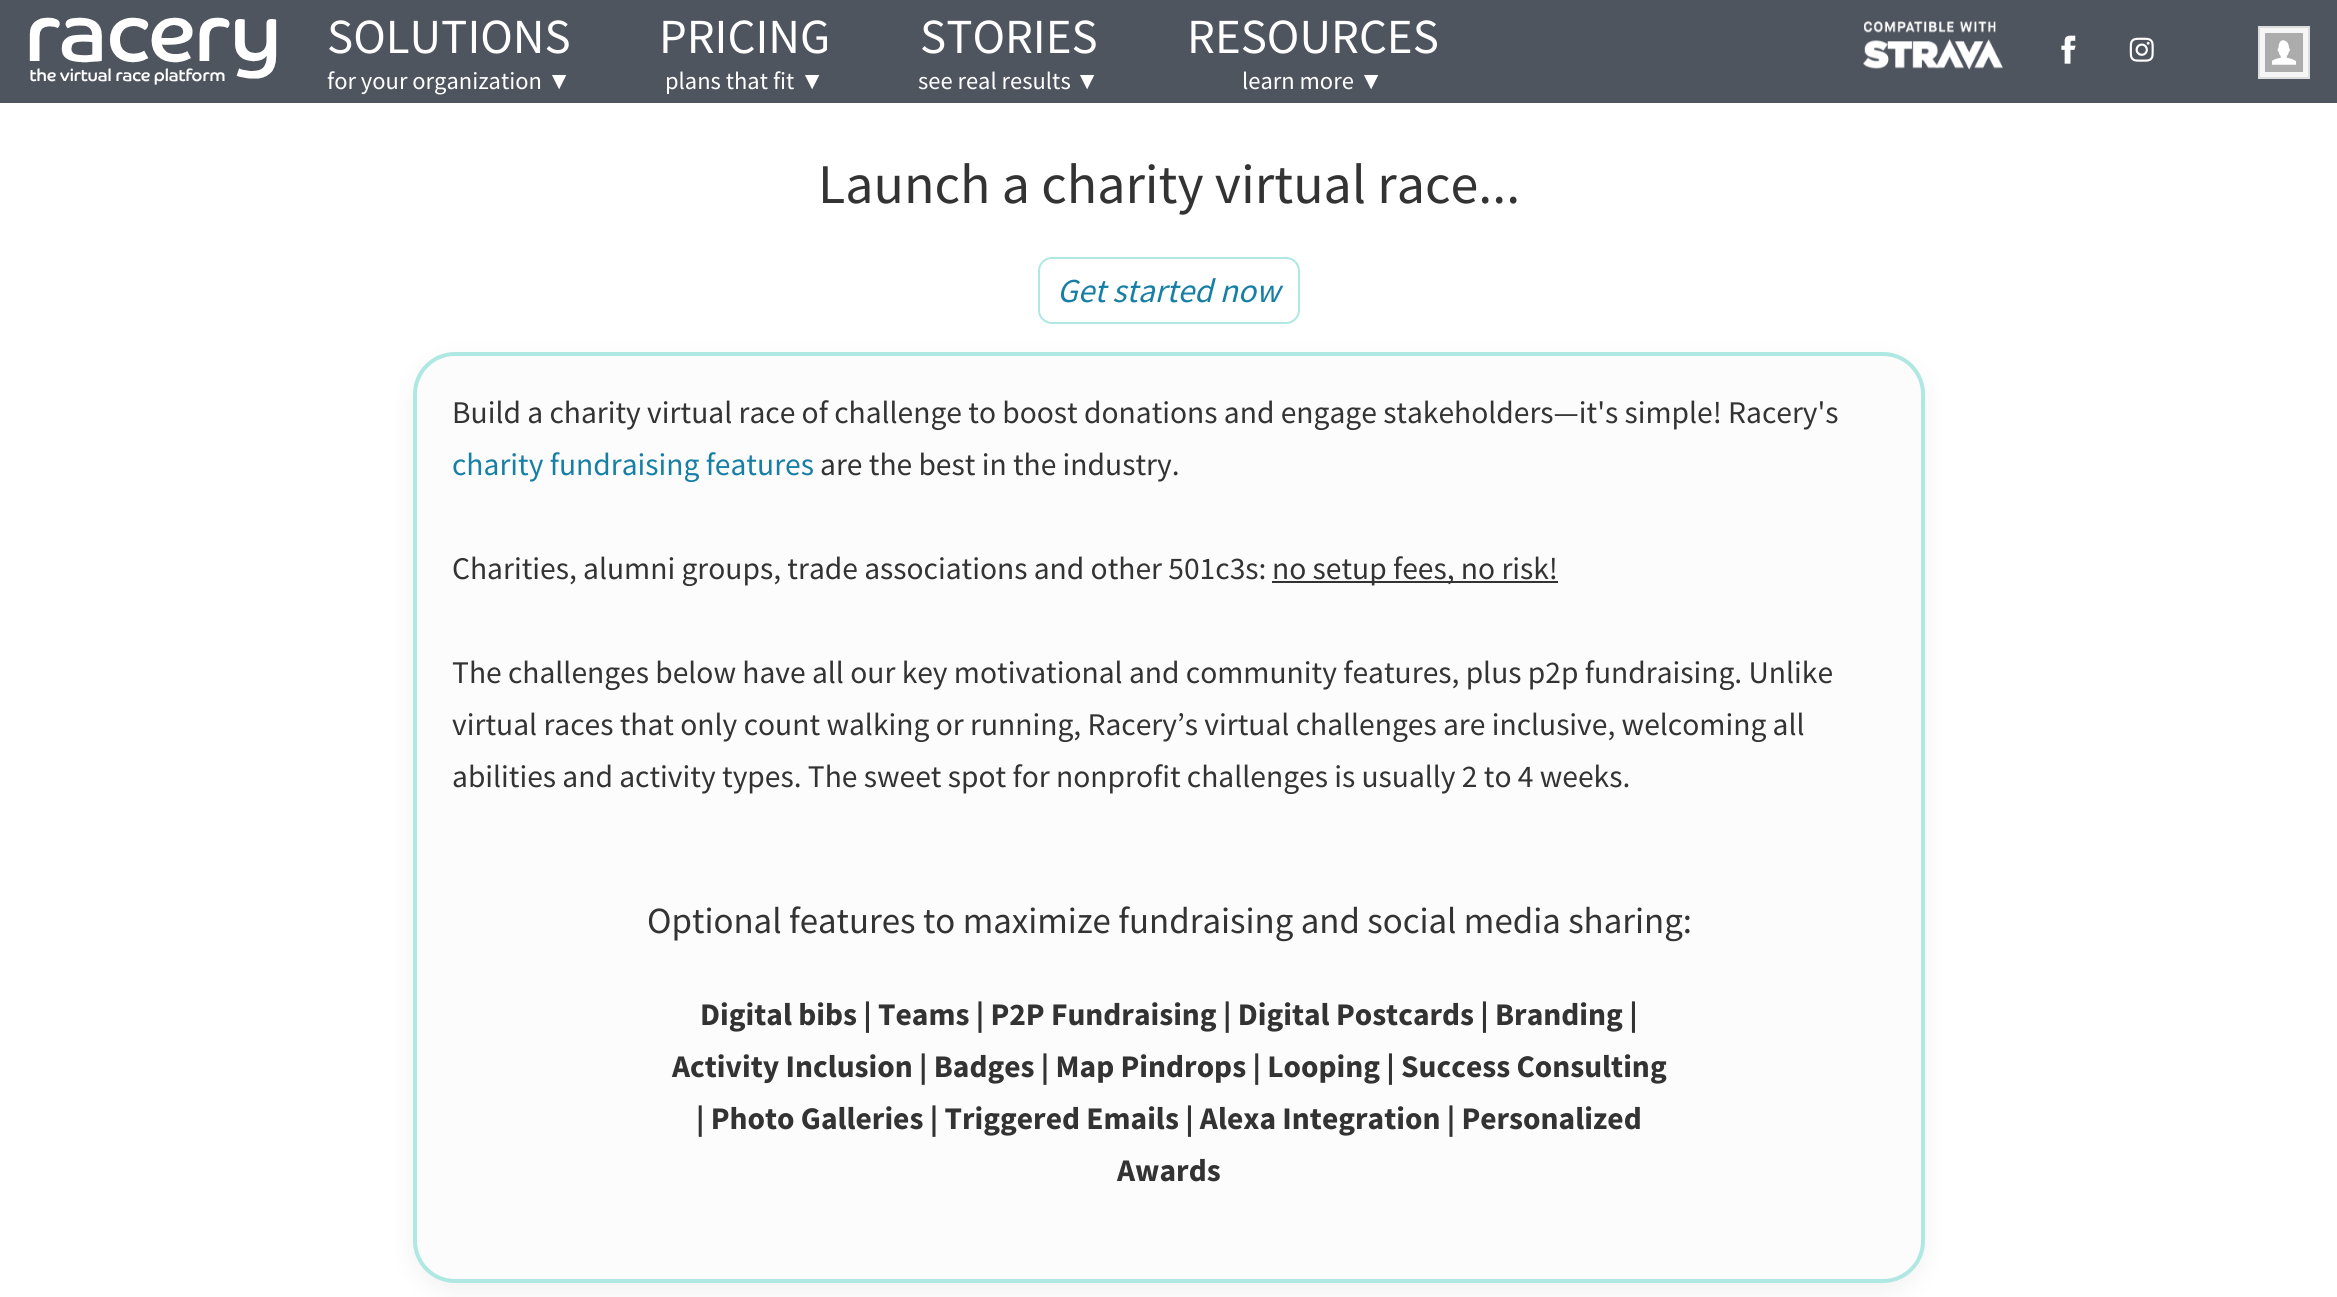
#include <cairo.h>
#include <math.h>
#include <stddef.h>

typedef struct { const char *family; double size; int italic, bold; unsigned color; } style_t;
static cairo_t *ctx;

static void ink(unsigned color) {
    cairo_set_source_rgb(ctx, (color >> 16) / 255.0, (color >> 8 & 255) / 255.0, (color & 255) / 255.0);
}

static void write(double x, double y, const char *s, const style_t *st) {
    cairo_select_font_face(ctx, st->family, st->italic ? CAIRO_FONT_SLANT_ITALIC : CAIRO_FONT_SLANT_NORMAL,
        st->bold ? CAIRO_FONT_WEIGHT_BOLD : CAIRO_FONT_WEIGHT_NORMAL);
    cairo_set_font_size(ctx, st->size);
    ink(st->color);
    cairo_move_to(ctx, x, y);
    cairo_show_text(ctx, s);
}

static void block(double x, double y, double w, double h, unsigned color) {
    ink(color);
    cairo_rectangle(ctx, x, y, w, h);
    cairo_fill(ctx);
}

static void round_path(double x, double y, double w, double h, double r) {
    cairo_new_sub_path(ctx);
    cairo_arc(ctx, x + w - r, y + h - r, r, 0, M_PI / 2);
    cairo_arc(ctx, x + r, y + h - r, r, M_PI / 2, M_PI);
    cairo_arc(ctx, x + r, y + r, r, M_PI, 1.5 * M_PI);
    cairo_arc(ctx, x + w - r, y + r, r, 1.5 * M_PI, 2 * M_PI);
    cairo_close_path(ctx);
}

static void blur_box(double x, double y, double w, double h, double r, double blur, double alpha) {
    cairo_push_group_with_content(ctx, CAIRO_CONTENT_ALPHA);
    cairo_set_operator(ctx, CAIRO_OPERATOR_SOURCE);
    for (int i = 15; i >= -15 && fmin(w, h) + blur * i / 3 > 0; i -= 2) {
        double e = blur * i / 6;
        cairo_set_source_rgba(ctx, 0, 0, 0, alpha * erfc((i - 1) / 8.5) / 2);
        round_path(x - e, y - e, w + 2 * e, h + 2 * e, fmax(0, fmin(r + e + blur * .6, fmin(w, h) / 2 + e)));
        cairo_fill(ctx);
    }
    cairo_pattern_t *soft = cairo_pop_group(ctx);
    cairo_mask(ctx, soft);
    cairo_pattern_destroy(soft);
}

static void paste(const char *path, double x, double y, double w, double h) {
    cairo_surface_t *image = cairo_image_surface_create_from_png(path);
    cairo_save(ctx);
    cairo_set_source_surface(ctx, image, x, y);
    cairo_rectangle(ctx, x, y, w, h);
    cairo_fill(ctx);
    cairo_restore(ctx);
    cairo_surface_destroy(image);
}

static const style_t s1 = {"Source Sans Pro", 49, 0, 0, 0xffffff};
static const style_t s2 = {"Source Sans Pro", 24.5, 0, 0, 0xffffff};
static const style_t s3 = {"Liberation Sans", 24.5, 0, 0, 0xffffff};
static const style_t s4 = {"Source Sans Pro", 56, 0, 0, 0x333333};
static const style_t s5 = {"Source Sans Pro", 33.5, 1, 0, 0x177fa5};
static const style_t s6 = {"Source Sans Pro", 31.5, 0, 0, 0x333333};
static const style_t s7 = {"Source Sans Pro", 31.5, 0, 0, 0x177fa5};
static const style_t s8 = {"Source Sans Pro", 36.85, 0, 0, 0x333333};
static const style_t s9 = {"Source Sans Pro", 31.5, 0, 1, 0x333333};

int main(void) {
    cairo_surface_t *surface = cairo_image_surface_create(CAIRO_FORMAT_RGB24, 2337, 1297);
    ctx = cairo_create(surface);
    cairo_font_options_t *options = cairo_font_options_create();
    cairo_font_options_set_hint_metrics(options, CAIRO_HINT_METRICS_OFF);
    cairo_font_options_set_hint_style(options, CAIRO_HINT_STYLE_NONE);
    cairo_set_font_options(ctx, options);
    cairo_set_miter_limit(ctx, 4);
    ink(0x4f555f);
    cairo_paint(ctx);
    block(0, 103, 2337, 1194, 0xffffff);
    paste("pic1.png", 29, 17, 248, 68);
    write(327, 53, "SOLUTIONS", &s1);
    write(327, 89, "for your organization", &s2);
    write(547, 89, "▼", &s3);
    write(659, 53, "PRICING", &s1);
    write(665, 89, "plans that fit", &s2);
    write(800, 89, "▼", &s3);
    write(920, 53, "STORIES", &s1);
    write(918, 89, "see real results", &s2);
    write(1075, 89, "▼", &s3);
    write(1187, 53, "RESOURCES", &s1);
    write(1242, 89, "learn more", &s2);
    write(1359, 89, "▼", &s3);
    paste("pic2.png", 1863, 21, 140, 49);
    paste("pic3.png", 2061, 35, 15, 29);
    paste("pic4.png", 2129, 37, 25, 25);
    ink(0xf6f6f6);
    cairo_rectangle(ctx, 2259, 27, 50, 51);
    cairo_fill_preserve(ctx);
    ink(0xdddddd);
    cairo_stroke(ctx);
    block(2265, 33, 38, 39, 0xacacac);
    paste("pic5.png", 2272, 40, 24, 25);
    write(818, 203, "Launch a charity virtual race...", &s4);
    ink(0x000000);
    blur_box(413, 361, 1512, 931, 42, 13, 0.06);
    round_path(1039, 258, 260, 65, 13);
    ink(0xafe8e2);
    cairo_stroke(ctx);
    write(1057, 302, "Get started now", &s5);
    ink(0xfcfcfc);
    round_path(415, 354, 1508, 927, 40);
    cairo_fill_preserve(ctx);
    ink(0xafe8e2);
    cairo_set_line_width(ctx, 4);
    cairo_stroke(ctx);
    write(452, 423, "Build a charity virtual race of challenge to boost donations and engage stakeholders—it's simple! Racery's", &s6);
    write(452, 475, "charity fundraising features", &s7);
    write(820, 475, "are the best in the industry.", &s6);
    write(452, 579, "Charities, alumni groups, trade associations and other 501c3s:", &s6);
    block(1272, 581, 286, 2, 0x333333);
    write(1272, 579, "no setup fees, no risk!", &s6);
    write(452, 683, "The challenges below have all our key motivational and community features, plus p2p fundraising. Unlike", &s6);
    write(452, 735, "virtual races that only count walking or running, Racery’s virtual challenges are inclusive, welcoming all", &s6);
    write(452, 787, "abilities and activity types. The sweet spot for nonprofit challenges is usually 2 to 4 weeks.", &s6);
    write(647, 933, "Optional features to maximize fundraising and social media sharing:", &s8);
    write(700, 1025, "Digital bibs | Teams | P2P Fundraising | Digital Postcards | Branding |", &s9);
    write(672, 1077, "Activity Inclusion | Badges | Map Pindrops | Looping | Success Consulting", &s9);
    write(696, 1129, "| Photo Galleries | Triggered Emails | Alexa Integration | Personalized", &s9);
    write(1117, 1181, "Awards", &s9);
    cairo_surface_write_to_png(surface, "screenshot.png");
    cairo_font_options_destroy(options);
    cairo_destroy(ctx);
    cairo_surface_destroy(surface);
    return 0;
}
